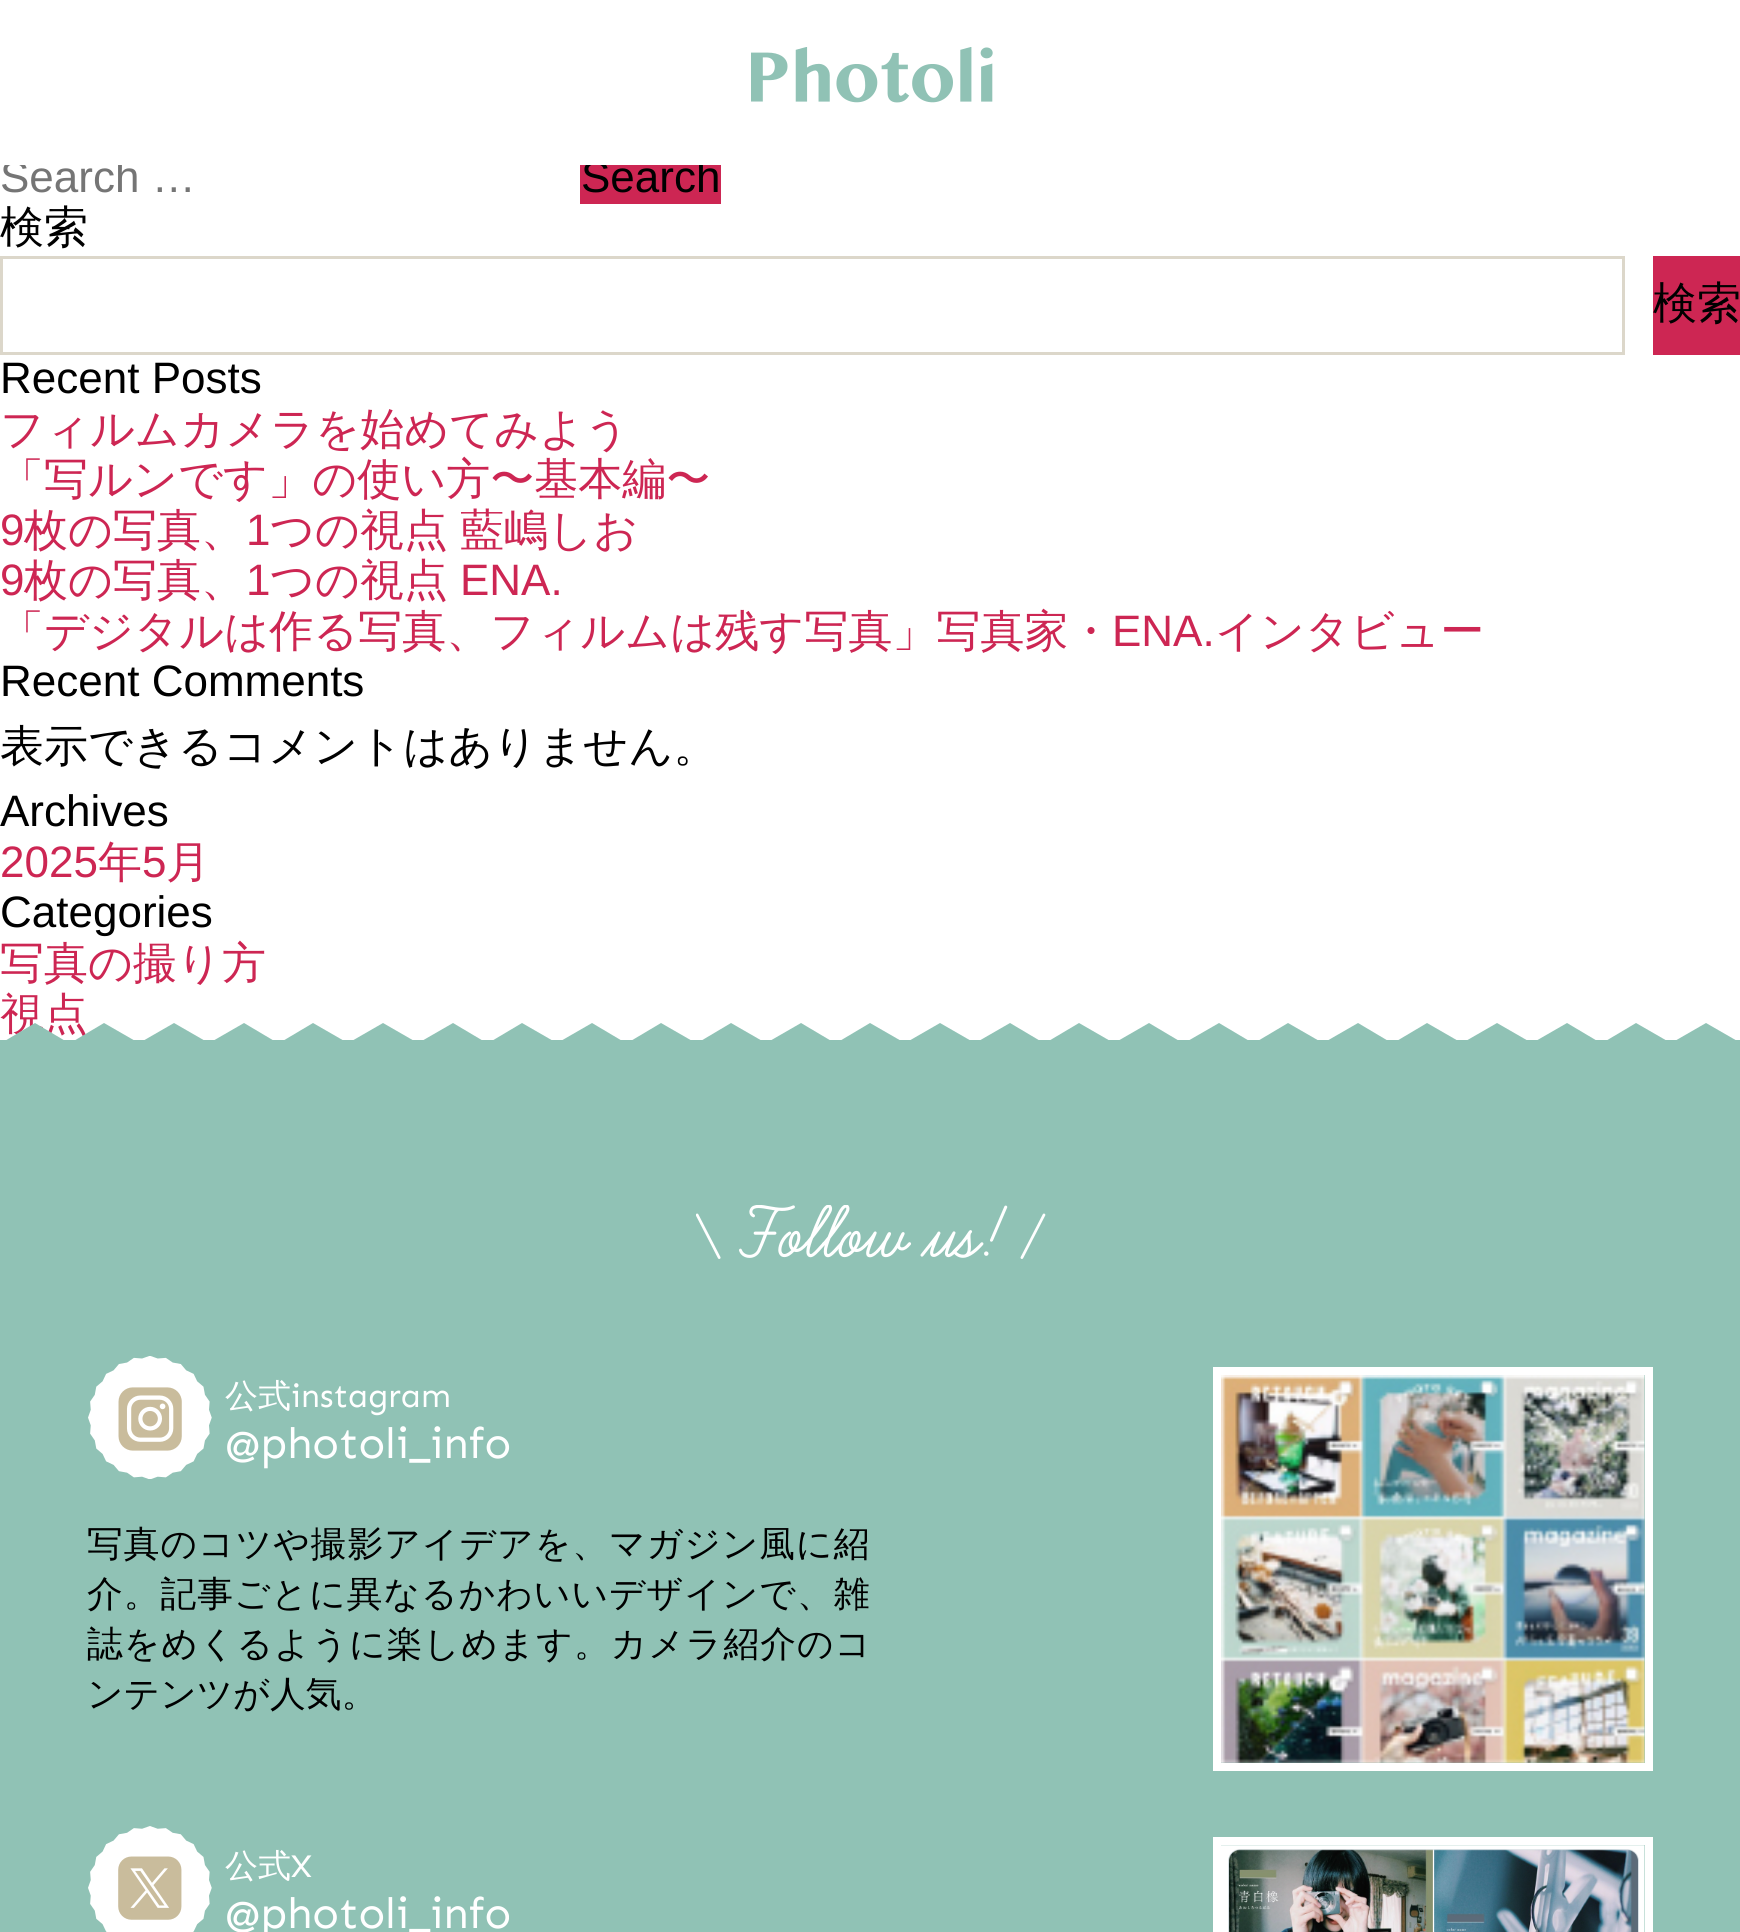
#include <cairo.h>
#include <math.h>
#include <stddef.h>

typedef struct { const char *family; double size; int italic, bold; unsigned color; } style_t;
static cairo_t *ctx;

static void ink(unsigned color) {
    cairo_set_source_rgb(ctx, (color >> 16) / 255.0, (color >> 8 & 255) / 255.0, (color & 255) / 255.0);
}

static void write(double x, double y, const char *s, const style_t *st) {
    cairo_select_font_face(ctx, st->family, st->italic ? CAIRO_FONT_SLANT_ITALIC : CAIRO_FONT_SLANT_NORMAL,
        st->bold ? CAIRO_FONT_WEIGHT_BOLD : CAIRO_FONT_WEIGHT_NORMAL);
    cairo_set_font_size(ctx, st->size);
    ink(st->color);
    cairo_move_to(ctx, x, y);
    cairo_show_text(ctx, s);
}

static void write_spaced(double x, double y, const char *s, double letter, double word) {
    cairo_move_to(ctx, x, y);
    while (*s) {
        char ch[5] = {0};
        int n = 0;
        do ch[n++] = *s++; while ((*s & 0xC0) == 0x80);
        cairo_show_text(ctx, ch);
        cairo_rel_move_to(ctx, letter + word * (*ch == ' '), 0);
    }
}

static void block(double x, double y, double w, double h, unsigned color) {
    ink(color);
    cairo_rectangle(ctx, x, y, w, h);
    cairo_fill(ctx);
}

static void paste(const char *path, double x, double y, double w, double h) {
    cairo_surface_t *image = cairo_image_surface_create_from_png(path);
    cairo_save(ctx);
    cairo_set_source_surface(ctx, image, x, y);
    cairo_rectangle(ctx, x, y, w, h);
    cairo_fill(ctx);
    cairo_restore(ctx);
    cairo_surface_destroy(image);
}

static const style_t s1 = {"Liberation Sans", 44, 0, 0, 0x757575};
static const style_t s2 = {"Liberation Sans", 44, 0, 0, 0x000000};
static const style_t s3 = {"WenQuanYi Zen Hei Medium", 44, 0, 0, 0x000000};
static const style_t s4 = {"WenQuanYi Zen Hei Medium", 44, 0, 0, 0xcd2653};
static const style_t s5 = {"Liberation Sans", 44, 0, 0, 0xcd2653};
static const style_t s6 = {"WenQuanYi Zen Hei Medium", 33, 0, 0, 0xffffff};
static const style_t s7 = {"Sen", 33, 0, 0, 0xffffff};
static const style_t s8 = {"Sen", 44, 0, 0, 0xffffff};
static const style_t s9 = {"WenQuanYi Zen Hei Medium", 35.75, 0, 0, 0x000000};

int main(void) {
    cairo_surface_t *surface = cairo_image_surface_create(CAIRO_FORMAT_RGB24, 1740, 1932);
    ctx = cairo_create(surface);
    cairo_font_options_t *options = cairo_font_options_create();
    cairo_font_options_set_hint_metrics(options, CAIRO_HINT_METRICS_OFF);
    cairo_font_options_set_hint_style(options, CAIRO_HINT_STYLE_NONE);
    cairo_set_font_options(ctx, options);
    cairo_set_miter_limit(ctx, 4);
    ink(0xffffff);
    cairo_paint(ctx);
    write(0, 192, "Search …", &s1);
    block(580, 165, 141, 39, 0xcd2653);
    write(581, 192, "Search", &s2);
    block(4, 160, 700, 5, 0xffffff);
    paste("pic1.png", 751, 47, 242, 56);
    write(0, 242, "検索", &s3);
    cairo_rectangle(ctx, 1.5, 257.5, 1622, 96);
    ink(0xdcd7ca);
    cairo_set_line_width(ctx, 3);
    cairo_stroke(ctx);
    block(1653, 256, 87, 99, 0xcd2653);
    write(1653, 318, "検索", &s3);
    write(0, 393, "Recent Posts", &s2);
    write(0, 444, "フィルムカメラを始めてみよう", &s4);
    write(0, 494, "「写ルンです」の使い方〜基本編〜", &s4);
    write(0, 545, "9", &s5);
    write(24, 545, "枚の写真、", &s4);
    write(246, 545, "1", &s5);
    cairo_select_font_face(ctx, "WenQuanYi Zen Hei Medium", CAIRO_FONT_SLANT_NORMAL, CAIRO_FONT_WEIGHT_NORMAL);
    write_spaced(270, 545, "つの視点 藍嶋しお", 0, -1);
    write(0, 595, "9", &s5);
    write(24, 595, "枚の写真、", &s4);
    write(246, 595, "1", &s5);
    write(270, 595, "つの視点", &s4);
    write(460, 595, "ENA.", &s5);
    write(0, 646, "「デジタルは作る写真、フィルムは残す写真」写真家・", &s4);
    write(1112, 646, "ENA.", &s5);
    write(1215, 646, "インタビュー", &s4);
    write(0, 696, "Recent Comments", &s2);
    write(0, 761, "表示できるコメントはありません。", &s3);
    write(0, 826, "Archives", &s2);
    write(0, 877, "2025", &s5);
    write(98, 877, "年", &s4);
    write(142, 877, "5", &s5);
    write(166, 877, "月", &s4);
    write(0, 927, "Categories", &s2);
    write(0, 978, "写真の撮り方", &s4);
    write(0, 1029, "視点", &s4);
    block(0, 1040, 1740, 892, 0x90c2b5);
    cairo_set_fill_rule(ctx, CAIRO_FILL_RULE_EVEN_ODD);
    cairo_new_path(ctx);
    cairo_move_to(ctx, 1739, 1042);
    cairo_line_to(ctx, 1706, 1023);
    cairo_line_to(ctx, 1673, 1042);
    cairo_close_path(ctx);
    cairo_move_to(ctx, 1669, 1042);
    cairo_line_to(ctx, 1636, 1023);
    cairo_line_to(ctx, 1604, 1042);
    cairo_close_path(ctx);
    cairo_move_to(ctx, 1599, 1042);
    cairo_line_to(ctx, 1567, 1023);
    cairo_line_to(ctx, 1534, 1042);
    cairo_close_path(ctx);
    cairo_move_to(ctx, 1530, 1042);
    cairo_line_to(ctx, 1497, 1023);
    cairo_line_to(ctx, 1464, 1042);
    cairo_close_path(ctx);
    cairo_move_to(ctx, 1460, 1042);
    cairo_line_to(ctx, 1427, 1023);
    cairo_line_to(ctx, 1395, 1042);
    cairo_close_path(ctx);
    cairo_move_to(ctx, 1390, 1042);
    cairo_line_to(ctx, 1358, 1023);
    cairo_line_to(ctx, 1325, 1042);
    cairo_close_path(ctx);
    cairo_move_to(ctx, 1321, 1042);
    cairo_line_to(ctx, 1288, 1023);
    cairo_line_to(ctx, 1256, 1042);
    cairo_close_path(ctx);
    cairo_move_to(ctx, 1251, 1042);
    cairo_line_to(ctx, 1219, 1023);
    cairo_line_to(ctx, 1186, 1042);
    cairo_close_path(ctx);
    cairo_move_to(ctx, 1181, 1042);
    cairo_line_to(ctx, 1149, 1023);
    cairo_line_to(ctx, 1116, 1042);
    cairo_close_path(ctx);
    cairo_move_to(ctx, 1112, 1042);
    cairo_line_to(ctx, 1079, 1023);
    cairo_line_to(ctx, 1047, 1042);
    cairo_close_path(ctx);
    cairo_move_to(ctx, 1042, 1042);
    cairo_line_to(ctx, 1010, 1023);
    cairo_line_to(ctx, 977, 1042);
    cairo_close_path(ctx);
    cairo_move_to(ctx, 973, 1042);
    cairo_line_to(ctx, 940, 1023);
    cairo_line_to(ctx, 907, 1042);
    cairo_close_path(ctx);
    cairo_move_to(ctx, 903, 1042);
    cairo_line_to(ctx, 870, 1023);
    cairo_line_to(ctx, 838, 1042);
    cairo_close_path(ctx);
    cairo_move_to(ctx, 833, 1042);
    cairo_line_to(ctx, 801, 1023);
    cairo_line_to(ctx, 768, 1042);
    cairo_close_path(ctx);
    cairo_move_to(ctx, 764, 1042);
    cairo_line_to(ctx, 731, 1023);
    cairo_line_to(ctx, 699, 1042);
    cairo_close_path(ctx);
    cairo_move_to(ctx, 694, 1042);
    cairo_line_to(ctx, 661, 1023);
    cairo_line_to(ctx, 629, 1042);
    cairo_close_path(ctx);
    cairo_move_to(ctx, 624, 1042);
    cairo_line_to(ctx, 592, 1023);
    cairo_line_to(ctx, 559, 1042);
    cairo_close_path(ctx);
    cairo_move_to(ctx, 555, 1042);
    cairo_line_to(ctx, 522, 1023);
    cairo_line_to(ctx, 490, 1042);
    cairo_close_path(ctx);
    cairo_move_to(ctx, 485, 1042);
    cairo_line_to(ctx, 453, 1023);
    cairo_line_to(ctx, 420, 1042);
    cairo_close_path(ctx);
    cairo_move_to(ctx, 416, 1042);
    cairo_line_to(ctx, 383, 1023);
    cairo_line_to(ctx, 350, 1042);
    cairo_close_path(ctx);
    cairo_move_to(ctx, 346, 1042);
    cairo_line_to(ctx, 313, 1023);
    cairo_line_to(ctx, 281, 1042);
    cairo_close_path(ctx);
    cairo_move_to(ctx, 276, 1042);
    cairo_line_to(ctx, 244, 1023);
    cairo_line_to(ctx, 211, 1042);
    cairo_close_path(ctx);
    cairo_move_to(ctx, 207, 1042);
    cairo_line_to(ctx, 174, 1023);
    cairo_line_to(ctx, 141, 1042);
    cairo_close_path(ctx);
    cairo_move_to(ctx, 137, 1042);
    cairo_line_to(ctx, 104, 1023);
    cairo_line_to(ctx, 72, 1042);
    cairo_close_path(ctx);
    cairo_move_to(ctx, 67, 1042);
    cairo_line_to(ctx, 35, 1023);
    cairo_line_to(ctx, 3, 1042);
    cairo_close_path(ctx);
    cairo_fill(ctx);
    paste("pic2.png", 696, 1205, 350, 54);
    paste("pic3.png", 88, 1356, 124, 123);
    write(225, 1407, "公式", &s6);
    write(291, 1407, "instagram", &s7);
    write(225, 1458, "@photoli_info", &s8);
    cairo_select_font_face(ctx, "WenQuanYi Zen Hei Medium", CAIRO_FONT_SLANT_NORMAL, CAIRO_FONT_WEIGHT_NORMAL);
    cairo_set_font_size(ctx, 35.75);
    ink(0x000000);
    write_spaced(87, 1556, "写真のコツや撮影アイデアを、マガジン風に紹", 1, 0);
    write_spaced(87, 1606, "介。記事ごとに異なるかわいいデザインで、雑", 1, 0);
    write_spaced(87, 1656, "誌をめくるように楽しめます。カメラ紹介のコ", 1, 0);
    write(87, 1706, "ンテンツが人気。", &s9);
    cairo_rectangle(ctx, 1217, 1371, 432, 396);
    ink(0xffffff);
    cairo_set_line_width(ctx, 8);
    cairo_stroke(ctx);
    paste("pic4.png", 1221, 1375, 424, 388);
    paste("pic5.png", 88, 1826, 124, 106);
    write(225, 1877, "公式", &s6);
    write(291, 1877, "X", &s7);
    write(225, 1928, "@photoli_info", &s8);
    cairo_rectangle(ctx, 1217, 1841, 432, 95);
    cairo_stroke(ctx);
    paste("pic6.png", 1221, 1845, 424, 87);
    cairo_surface_write_to_png(surface, "screenshot.png");
    cairo_font_options_destroy(options);
    cairo_destroy(ctx);
    cairo_surface_destroy(surface);
    return 0;
}
